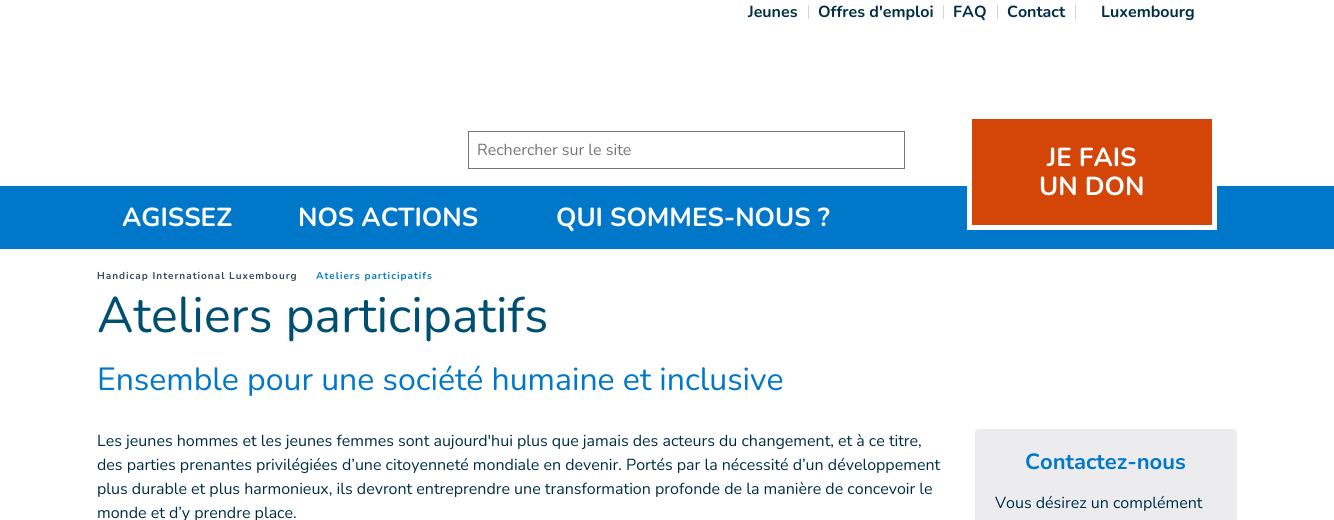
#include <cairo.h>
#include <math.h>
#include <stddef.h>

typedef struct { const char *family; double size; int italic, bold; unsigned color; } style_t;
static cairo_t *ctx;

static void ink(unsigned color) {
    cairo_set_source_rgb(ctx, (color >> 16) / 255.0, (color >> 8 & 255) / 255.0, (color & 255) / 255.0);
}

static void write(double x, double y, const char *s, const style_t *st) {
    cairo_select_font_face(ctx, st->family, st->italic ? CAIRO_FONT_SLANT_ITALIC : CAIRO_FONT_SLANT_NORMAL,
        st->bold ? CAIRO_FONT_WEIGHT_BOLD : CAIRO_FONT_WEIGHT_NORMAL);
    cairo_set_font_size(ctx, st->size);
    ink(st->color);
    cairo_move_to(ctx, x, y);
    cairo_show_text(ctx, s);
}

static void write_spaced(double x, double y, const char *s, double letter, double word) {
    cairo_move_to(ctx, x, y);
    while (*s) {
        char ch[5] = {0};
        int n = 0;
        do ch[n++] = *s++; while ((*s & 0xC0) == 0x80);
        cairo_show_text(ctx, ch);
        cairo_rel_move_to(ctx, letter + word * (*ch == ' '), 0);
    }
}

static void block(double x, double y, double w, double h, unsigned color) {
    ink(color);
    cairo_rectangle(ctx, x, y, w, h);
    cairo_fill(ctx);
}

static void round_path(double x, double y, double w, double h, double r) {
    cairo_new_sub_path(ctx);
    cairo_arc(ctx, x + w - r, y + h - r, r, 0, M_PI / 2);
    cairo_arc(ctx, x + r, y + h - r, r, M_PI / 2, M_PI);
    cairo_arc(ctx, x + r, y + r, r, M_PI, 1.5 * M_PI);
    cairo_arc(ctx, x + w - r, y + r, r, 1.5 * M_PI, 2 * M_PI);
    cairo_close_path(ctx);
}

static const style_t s1 = {"Nunito", 16, 0, 1, 0x002e43};
static const style_t s2 = {"Nunito", 16, 0, 0, 0x757575};
static const style_t s3 = {"Nunito", 26, 0, 1, 0xffffff};
static const style_t s4 = {"Nunito", 50, 0, 0, 0x004f71};
static const style_t s5 = {"Nunito", 32, 0, 0, 0x0077c8};
static const style_t s6 = {"Nunito", 16, 0, 0, 0x002e43};
static const style_t s7 = {"Nunito", 22, 0, 1, 0x0077c8};

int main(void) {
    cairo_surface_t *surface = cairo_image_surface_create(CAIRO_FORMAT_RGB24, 1334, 520);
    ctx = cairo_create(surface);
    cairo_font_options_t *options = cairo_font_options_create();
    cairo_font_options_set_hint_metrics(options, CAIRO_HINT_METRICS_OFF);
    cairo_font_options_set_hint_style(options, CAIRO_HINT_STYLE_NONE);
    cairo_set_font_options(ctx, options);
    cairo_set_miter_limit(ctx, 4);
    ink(0xffffff);
    cairo_paint(ctx);
    write(748, 17, "Jeunes", &s1);
    block(808, 5, 1, 14, 0xd4d5d8);
    write(818, 17, "Offres d'emploi", &s1);
    block(943, 5, 1, 14, 0xd4d5d8);
    write(953, 17, "FAQ", &s1);
    block(997, 5, 1, 14, 0xd4d5d8);
    write(1007, 17, "Contact", &s1);
    block(1075, 5, 1, 14, 0xd4d5d8);
    write(1101, 17, "Luxembourg", &s1);
    cairo_rectangle(ctx, 468.5, 131.5, 436, 37);
    ink(0x727578);
    cairo_set_line_width(ctx, 1);
    cairo_stroke(ctx);
    write(477, 155, "Rechercher sur le site", &s2);
    block(0, 186, 1334, 63, 0x0077c8);
    ink(0xd34607);
    cairo_rectangle(ctx, 969.5, 116.5, 245, 111);
    cairo_fill_preserve(ctx);
    ink(0xffffff);
    cairo_set_line_width(ctx, 5);
    cairo_stroke(ctx);
    write(1047, 166, "JE FAIS", &s3);
    write(1039, 195, "UN DON", &s3);
    write(122, 226, "AGISSEZ", &s3);
    write(298, 226, "NOS ACTIONS", &s3);
    write(556, 226, "QUI SOMMES-NOUS ?", &s3);
    cairo_set_font_size(ctx, 10);
    ink(0x34495e);
    write_spaced(97, 279, "Handicap International Luxembourg", 1, 0);
    ink(0x037cc2);
    write_spaced(316, 279, "Ateliers participatifs", 1, 0);
    write(97, 332, "Ateliers participatifs", &s4);
    write(97, 390, "Ensemble pour une société humaine et inclusive", &s5);
    write(97, 446, "Les jeunes hommes et les jeunes femmes sont aujourd'hui plus que jamais des acteurs du changement, et à ce titre,", &s6);
    write(97, 470, "des parties prenantes privilégiées d’une citoyenneté mondiale en devenir. Portés par la nécessité d’un développement", &s6);
    write(97, 494, "plus durable et plus harmonieux, ils devront entreprendre une transformation profonde de la manière de concevoir le", &s6);
    write(97, 518, "monde et d’y prendre place.", &s6);
    ink(0xececef);
    round_path(975, 429, 262, 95, 4);
    cairo_fill(ctx);
    write(1025, 469, "Contactez-nous", &s7);
    write(995, 508, "Vous désirez un complément", &s6);
    cairo_surface_write_to_png(surface, "screenshot.png");
    cairo_font_options_destroy(options);
    cairo_destroy(ctx);
    cairo_surface_destroy(surface);
    return 0;
}
